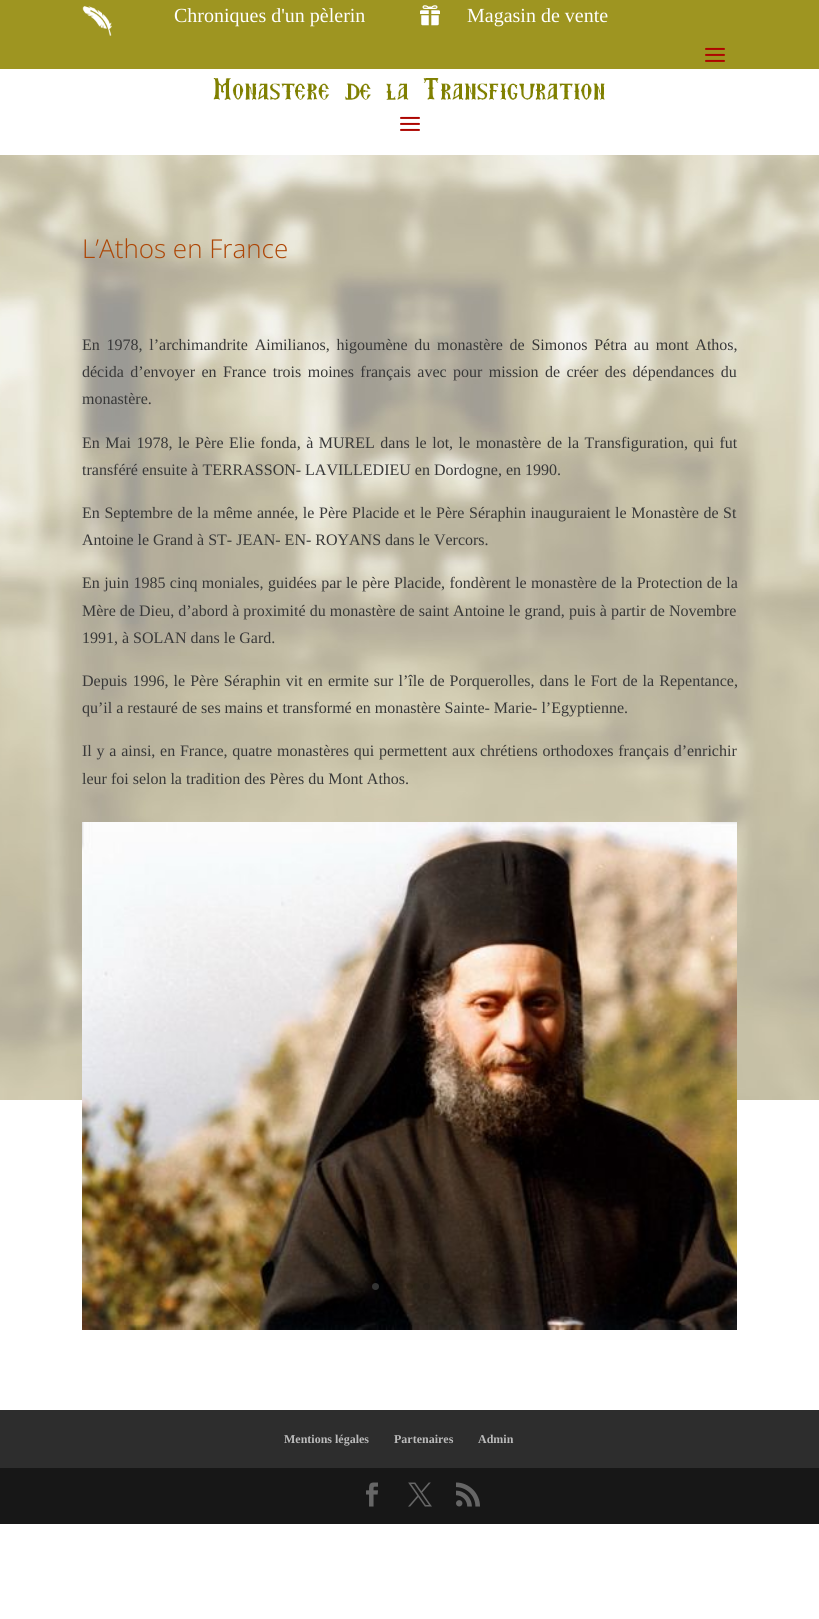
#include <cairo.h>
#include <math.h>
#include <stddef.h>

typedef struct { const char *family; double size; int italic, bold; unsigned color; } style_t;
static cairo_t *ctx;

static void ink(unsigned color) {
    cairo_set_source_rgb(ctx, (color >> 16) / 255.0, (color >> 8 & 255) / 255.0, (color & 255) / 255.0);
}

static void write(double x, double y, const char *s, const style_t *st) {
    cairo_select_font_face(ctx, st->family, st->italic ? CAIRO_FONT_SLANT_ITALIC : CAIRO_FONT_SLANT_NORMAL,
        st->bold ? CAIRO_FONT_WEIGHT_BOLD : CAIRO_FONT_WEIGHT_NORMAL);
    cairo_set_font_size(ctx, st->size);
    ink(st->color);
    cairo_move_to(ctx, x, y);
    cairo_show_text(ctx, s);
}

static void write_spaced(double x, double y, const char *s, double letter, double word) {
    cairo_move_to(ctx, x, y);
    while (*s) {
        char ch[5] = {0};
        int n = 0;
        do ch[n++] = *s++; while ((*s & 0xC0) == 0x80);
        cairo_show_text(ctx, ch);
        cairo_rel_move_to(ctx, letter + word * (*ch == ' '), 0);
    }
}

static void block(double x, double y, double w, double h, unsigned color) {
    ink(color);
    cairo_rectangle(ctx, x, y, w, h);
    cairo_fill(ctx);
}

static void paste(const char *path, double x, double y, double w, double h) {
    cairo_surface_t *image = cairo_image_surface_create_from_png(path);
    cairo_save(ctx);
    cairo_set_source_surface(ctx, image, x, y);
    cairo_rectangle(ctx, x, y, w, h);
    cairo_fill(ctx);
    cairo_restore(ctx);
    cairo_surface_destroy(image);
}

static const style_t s1 = {"Liberation Serif", 20, 0, 0, 0xffffff};
static const style_t s2 = {"Open Sans Light", 26, 0, 0, 0xad4606};
static const style_t s3 = {"Liberation Serif", 16, 0, 0, 0x383838};
static const style_t s4 = {"Liberation Serif", 12, 0, 1, 0xbbbbbb};

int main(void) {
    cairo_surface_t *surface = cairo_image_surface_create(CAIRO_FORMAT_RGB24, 819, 1619);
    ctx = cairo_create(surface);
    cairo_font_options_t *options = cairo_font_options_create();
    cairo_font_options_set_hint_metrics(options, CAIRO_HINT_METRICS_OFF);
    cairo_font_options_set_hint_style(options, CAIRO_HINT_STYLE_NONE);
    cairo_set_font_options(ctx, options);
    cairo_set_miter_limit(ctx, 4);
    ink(0xffffff);
    cairo_paint(ctx);
    paste("pic1.png", 0, 155, 819, 945);
    block(0, 0, 819, 69, 0x9e9521);
    paste("pic2.png", 82, 6, 30, 30);
    write(174, 22, "Chroniques d'un pèlerin", &s1);
    paste("pic3.png", 420, 5, 20, 21);
    write(467, 22, "Magasin de vente", &s1);
    paste("pic4.png", 705, 47, 20, 15);
    paste("pic5.png", 213, 78, 392, 22);
    paste("pic6.png", 400, 116, 20, 15);
    write(82, 258, "L’Athos en France", &s2);
    cairo_select_font_face(ctx, "Liberation Serif", CAIRO_FONT_SLANT_NORMAL, CAIRO_FONT_WEIGHT_NORMAL);
    cairo_set_font_size(ctx, 16);
    ink(0x383838);
    write_spaced(82, 350, "En 1978, l’archimandrite Aimilianos, higoumène du monastère de Simonos Pétra au mont Athos,", 0, 2.75);
    write_spaced(82, 377, "décida d’envoyer en France trois moines français avec pour mission de créer des dépendances du", 0, 2.4);
    write(82, 404, "monastère.", &s3);
    write_spaced(82, 448, "En Mai 1978, le Père Elie fonda, à MUREL dans le lot, le monastère de la Transfiguration, qui fut", 0, 1.5);
    write(82, 475, "transféré ensuite à TERRASSON- LAVILLEDIEU en Dordogne, en 1990.", &s3);
    write_spaced(82, 518, "En Septembre de la même année, le Père Placide et le Père Séraphin inauguraient le Monastère de St", 0, 0.6);
    write(82, 545, "Antoine le Grand à ST- JEAN- EN- ROYANS dans le Vercors.", &s3);
    write_spaced(82, 588, "En juin 1985 cinq moniales, guidées par le père Placide, fondèrent le monastère de la Protection de la", 0, 0.4);
    write_spaced(82, 616, "Mère de Dieu, d’abord à proximité du monastère de saint Antoine le grand, puis à partir de Novembre", 0, 0.1);
    write(82, 643, "1991, à SOLAN dans le Gard.", &s3);
    write_spaced(82, 686, "Depuis 1996, le Père Séraphin vit en ermite sur l’île de Porquerolles, dans le Fort de la Repentance,", 0, 1.1);
    write(82, 713, "qu’il a restauré de ses mains et transformé en monastère Sainte- Marie- l’Egyptienne.", &s3);
    write_spaced(82, 756, "Il y a ainsi, en France, quatre monastères qui permettent aux chrétiens orthodoxes français d’enrichir", 0, 0.75);
    write(82, 784, "leur foi selon la tradition des Pères du Mont Athos.", &s3);
    paste("pic7.png", 82, 822, 655, 508);
    ink(0x333333);
    cairo_arc(ctx, 375.5, 1286.5, 3.5, 0, 2 * M_PI);
    cairo_fill(ctx);
    cairo_set_source_rgba(ctx, 0, 0, 0, 0.15);
    cairo_arc(ctx, 392.5, 1286.5, 3.5, 0, 2 * M_PI);
    cairo_fill(ctx);
    cairo_arc(ctx, 409.5, 1286.5, 3.5, 0, 2 * M_PI);
    cairo_fill(ctx);
    cairo_arc(ctx, 426.5, 1286.5, 3.5, 0, 2 * M_PI);
    cairo_fill(ctx);
    cairo_arc(ctx, 443.5, 1286.5, 3.5, 0, 2 * M_PI);
    cairo_fill(ctx);
    block(0, 1410, 819, 58, 0x2d2d2d);
    write(284, 1443, "Mentions légales", &s4);
    write(394, 1443, "Partenaires", &s4);
    write(478, 1443, "Admin", &s4);
    block(0, 1468, 819, 56, 0x171717);
    paste("pic8.png", 366, 1482, 12, 25);
    paste("pic9.png", 408, 1482, 24, 25);
    paste("pic10.png", 456, 1482, 24, 25);
    cairo_surface_write_to_png(surface, "screenshot.png");
    cairo_font_options_destroy(options);
    cairo_destroy(ctx);
    cairo_surface_destroy(surface);
    return 0;
}
